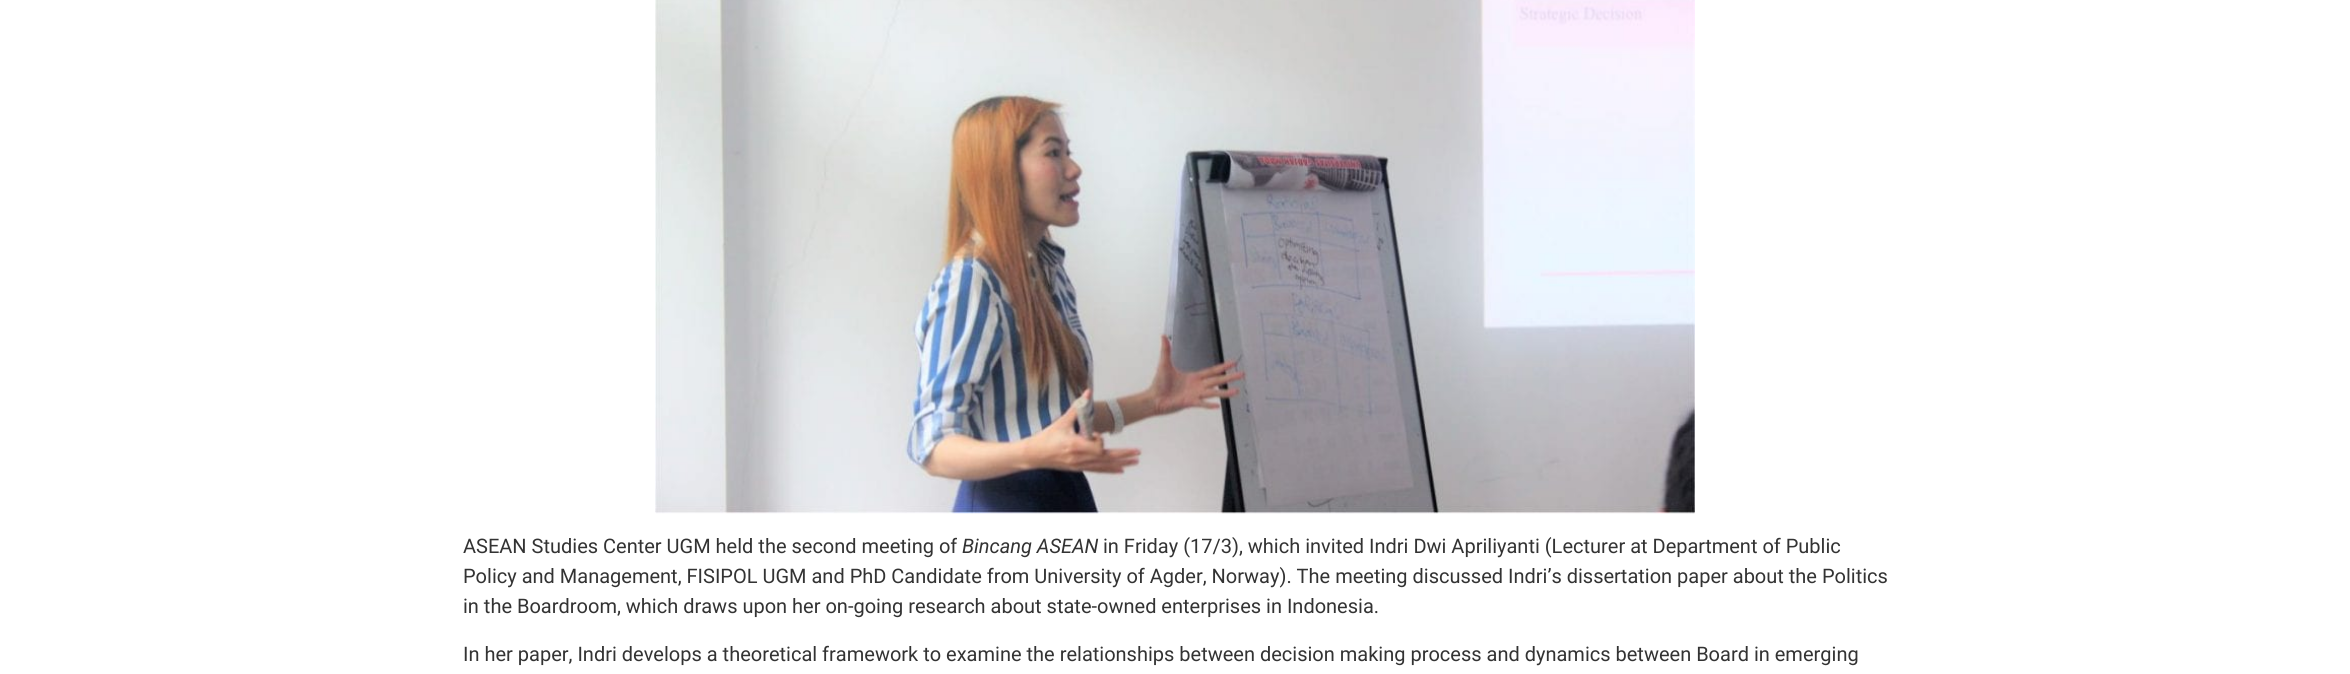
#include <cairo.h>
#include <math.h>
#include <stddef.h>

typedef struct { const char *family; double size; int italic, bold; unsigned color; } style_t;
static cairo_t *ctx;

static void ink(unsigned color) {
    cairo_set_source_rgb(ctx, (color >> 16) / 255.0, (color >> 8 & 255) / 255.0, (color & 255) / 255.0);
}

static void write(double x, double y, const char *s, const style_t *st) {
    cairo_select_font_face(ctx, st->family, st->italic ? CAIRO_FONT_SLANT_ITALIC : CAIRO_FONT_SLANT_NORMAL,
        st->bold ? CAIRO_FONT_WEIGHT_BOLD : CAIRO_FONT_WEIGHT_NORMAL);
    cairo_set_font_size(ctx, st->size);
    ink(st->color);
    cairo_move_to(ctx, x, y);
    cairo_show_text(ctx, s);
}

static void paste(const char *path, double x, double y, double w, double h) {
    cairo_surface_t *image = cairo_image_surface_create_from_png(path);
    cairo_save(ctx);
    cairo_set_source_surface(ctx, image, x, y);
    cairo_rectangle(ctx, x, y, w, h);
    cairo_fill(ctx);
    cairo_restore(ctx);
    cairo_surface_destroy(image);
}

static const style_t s1 = {"Roboto", 20, 0, 0, 0x333333};
static const style_t s2 = {"Roboto", 20, 1, 0, 0x333333};

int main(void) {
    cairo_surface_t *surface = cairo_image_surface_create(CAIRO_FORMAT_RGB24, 2350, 674);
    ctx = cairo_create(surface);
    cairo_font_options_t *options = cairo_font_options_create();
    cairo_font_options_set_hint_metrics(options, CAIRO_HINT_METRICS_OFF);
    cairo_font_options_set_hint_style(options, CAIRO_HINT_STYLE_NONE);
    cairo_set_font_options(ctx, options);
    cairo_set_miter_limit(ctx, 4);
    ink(0xffffff);
    cairo_paint(ctx);
    paste("pic1.png", 655, 0, 1040, 514);
    write(463, 553, "ASEAN Studies Center UGM held the second meeting of", &s1);
    write(962, 553, "Bincang ASEAN", &s2);
    write(1103, 553, "in Friday (17/3), which invited Indri Dwi Apriliyanti (Lecturer at Department of Public", &s1);
    write(463, 583, "Policy and Management, FISIPOL UGM and PhD Candidate from University of Agder, Norway). The meeting discussed Indri’s dissertation paper about the Politics", &s1);
    write(463, 613, "in the Boardroom, which draws upon her on-going research about state-owned enterprises in Indonesia.", &s1);
    write(463, 661, "In her paper, Indri develops a theoretical framework to examine the relationships between decision making process and dynamics between Board in emerging", &s1);
    cairo_surface_write_to_png(surface, "screenshot.png");
    cairo_font_options_destroy(options);
    cairo_destroy(ctx);
    cairo_surface_destroy(surface);
    return 0;
}
